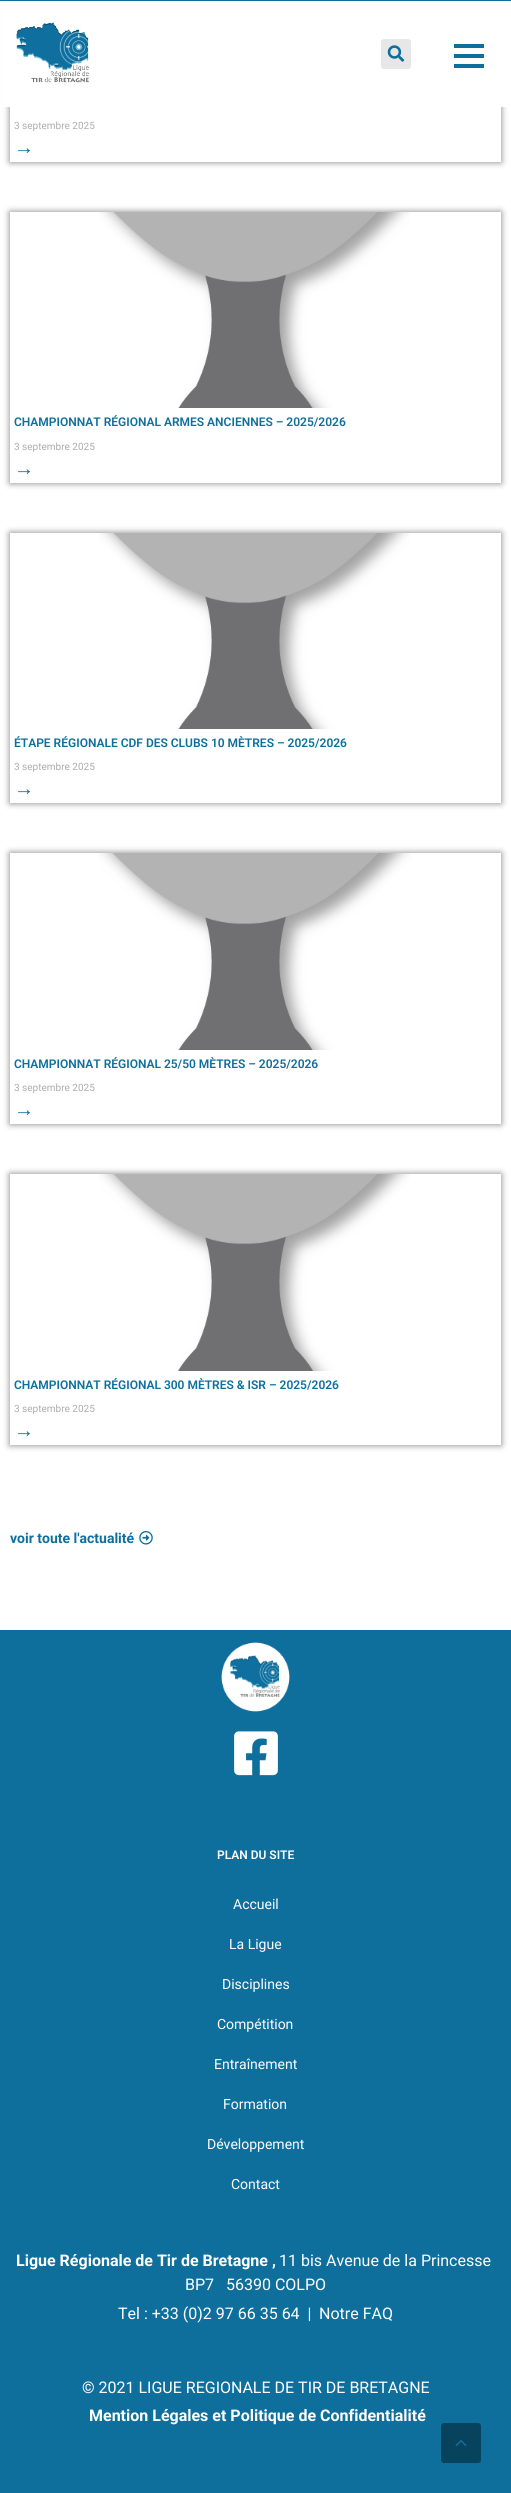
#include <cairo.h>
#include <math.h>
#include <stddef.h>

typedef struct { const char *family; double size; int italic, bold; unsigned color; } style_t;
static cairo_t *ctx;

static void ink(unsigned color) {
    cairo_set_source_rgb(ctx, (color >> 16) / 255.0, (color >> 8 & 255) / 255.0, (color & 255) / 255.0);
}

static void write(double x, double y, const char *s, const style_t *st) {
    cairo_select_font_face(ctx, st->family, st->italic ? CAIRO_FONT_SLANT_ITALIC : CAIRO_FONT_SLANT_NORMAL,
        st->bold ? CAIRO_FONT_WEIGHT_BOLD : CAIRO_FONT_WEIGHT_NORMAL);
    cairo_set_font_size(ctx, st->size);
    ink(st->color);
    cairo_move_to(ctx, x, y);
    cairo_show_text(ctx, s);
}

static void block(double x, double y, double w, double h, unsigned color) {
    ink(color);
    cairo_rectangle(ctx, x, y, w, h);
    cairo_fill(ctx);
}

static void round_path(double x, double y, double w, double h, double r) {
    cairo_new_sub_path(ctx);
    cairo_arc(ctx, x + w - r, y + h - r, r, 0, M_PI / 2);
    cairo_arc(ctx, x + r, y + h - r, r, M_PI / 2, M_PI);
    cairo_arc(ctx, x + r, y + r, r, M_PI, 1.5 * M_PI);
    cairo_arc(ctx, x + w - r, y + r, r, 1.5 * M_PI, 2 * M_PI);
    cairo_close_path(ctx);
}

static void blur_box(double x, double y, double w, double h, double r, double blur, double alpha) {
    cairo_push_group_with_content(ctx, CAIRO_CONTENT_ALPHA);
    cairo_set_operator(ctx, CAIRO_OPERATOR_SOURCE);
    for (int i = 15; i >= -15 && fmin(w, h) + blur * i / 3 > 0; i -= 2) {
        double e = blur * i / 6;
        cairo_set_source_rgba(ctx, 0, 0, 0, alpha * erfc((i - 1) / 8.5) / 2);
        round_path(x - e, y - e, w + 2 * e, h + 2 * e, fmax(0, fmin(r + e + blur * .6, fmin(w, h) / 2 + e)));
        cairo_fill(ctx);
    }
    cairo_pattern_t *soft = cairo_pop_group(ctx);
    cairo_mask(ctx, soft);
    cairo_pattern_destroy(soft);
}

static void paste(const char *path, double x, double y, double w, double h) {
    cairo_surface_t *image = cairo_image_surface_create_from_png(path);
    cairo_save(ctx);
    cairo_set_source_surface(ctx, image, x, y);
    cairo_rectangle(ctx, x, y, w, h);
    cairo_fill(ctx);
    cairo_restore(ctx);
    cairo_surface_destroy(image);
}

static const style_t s1 = {"Roboto", 10, 0, 0, 0xadadad};
static const style_t s2 = {"Liberation Sans", 20, 0, 1, 0x0e6f9d};
static const style_t s3 = {"Roboto SemiBold", 12, 0, 0, 0x0e6f9d};
static const style_t s4 = {"Roboto", 14, 0, 1, 0x0e6f9d};
static const style_t s5 = {"Roboto SemiBold", 12, 0, 0, 0xffffff};
static const style_t s6 = {"Roboto", 14, 0, 0, 0xffffff};
static const style_t s7 = {"Roboto", 16, 0, 1, 0xffffff};
static const style_t s8 = {"Roboto", 16, 0, 0, 0xffffff};

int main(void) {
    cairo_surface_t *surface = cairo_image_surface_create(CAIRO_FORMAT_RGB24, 511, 2493);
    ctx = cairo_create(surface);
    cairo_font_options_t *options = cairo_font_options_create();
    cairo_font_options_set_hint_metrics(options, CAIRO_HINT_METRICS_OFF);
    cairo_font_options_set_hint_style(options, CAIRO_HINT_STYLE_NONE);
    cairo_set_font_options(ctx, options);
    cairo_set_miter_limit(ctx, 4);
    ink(0xffffff);
    cairo_paint(ctx);
    cairo_save(ctx);
    cairo_set_fill_rule(ctx, CAIRO_FILL_RULE_EVEN_ODD);
    cairo_new_path(ctx);
    cairo_move_to(ctx, 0, 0);
    cairo_line_to(ctx, 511, 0);
    cairo_line_to(ctx, 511, 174);
    cairo_line_to(ctx, 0, 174);
    cairo_close_path(ctx);
    cairo_move_to(ctx, 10, -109);
    cairo_line_to(ctx, 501, -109);
    cairo_line_to(ctx, 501, 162);
    cairo_line_to(ctx, 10, 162);
    cairo_close_path(ctx);
    cairo_clip(ctx);
    ink(0x000000);
    blur_box(10, -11, 491, 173, 0, 3.5, 0.5);
    cairo_restore(ctx);
    block(0, 0, 511, 1, 0x0e6f9d);
    block(3, 1, 505, 106, 0xffffff);
    paste("pic1.png", 16, 22, 73, 61);
    ink(0xe7e7e7);
    round_path(381, 39, 30, 30, 3);
    cairo_fill(ctx);
    paste("pic2.png", 387, 45, 18, 17);
    block(454, 44, 30, 4, 0x0e6f9d);
    block(454, 54, 30, 4, 0x0e6f9d);
    block(454, 64, 30, 4, 0x0e6f9d);
    write(14, 129, "3 septembre 2025", &s1);
    write(14, 154, "→", &s2);
    cairo_save(ctx);
    cairo_set_fill_rule(ctx, CAIRO_FILL_RULE_EVEN_ODD);
    cairo_new_path(ctx);
    cairo_move_to(ctx, 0, 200);
    cairo_line_to(ctx, 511, 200);
    cairo_line_to(ctx, 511, 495);
    cairo_line_to(ctx, 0, 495);
    cairo_close_path(ctx);
    cairo_move_to(ctx, 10, 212);
    cairo_line_to(ctx, 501, 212);
    cairo_line_to(ctx, 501, 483);
    cairo_line_to(ctx, 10, 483);
    cairo_close_path(ctx);
    cairo_clip(ctx);
    ink(0x000000);
    blur_box(10, 212, 491, 271, 0, 3.5, 0.5);
    cairo_restore(ctx);
    paste("pic3.png", 99, 212, 311, 196);
    write(14, 426, "CHAMPIONNAT RÉGIONAL ARMES ANCIENNES – 2025/2026", &s3);
    write(14, 450, "3 septembre 2025", &s1);
    write(14, 475, "→", &s2);
    cairo_save(ctx);
    cairo_set_fill_rule(ctx, CAIRO_FILL_RULE_EVEN_ODD);
    cairo_new_path(ctx);
    cairo_move_to(ctx, 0, 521);
    cairo_line_to(ctx, 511, 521);
    cairo_line_to(ctx, 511, 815);
    cairo_line_to(ctx, 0, 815);
    cairo_close_path(ctx);
    cairo_move_to(ctx, 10, 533);
    cairo_line_to(ctx, 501, 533);
    cairo_line_to(ctx, 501, 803);
    cairo_line_to(ctx, 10, 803);
    cairo_close_path(ctx);
    cairo_clip(ctx);
    ink(0x000000);
    blur_box(10, 533, 491, 270, 0, 3.5, 0.5);
    cairo_restore(ctx);
    paste("pic3.png", 99, 533, 311, 196);
    write(14, 747, "ÉTAPE RÉGIONALE CDF DES CLUBS 10 MÈTRES – 2025/2026", &s3);
    write(14, 770, "3 septembre 2025", &s1);
    write(14, 795, "→", &s2);
    cairo_save(ctx);
    cairo_set_fill_rule(ctx, CAIRO_FILL_RULE_EVEN_ODD);
    cairo_new_path(ctx);
    cairo_move_to(ctx, 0, 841);
    cairo_line_to(ctx, 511, 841);
    cairo_line_to(ctx, 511, 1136);
    cairo_line_to(ctx, 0, 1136);
    cairo_close_path(ctx);
    cairo_move_to(ctx, 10, 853);
    cairo_line_to(ctx, 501, 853);
    cairo_line_to(ctx, 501, 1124);
    cairo_line_to(ctx, 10, 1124);
    cairo_close_path(ctx);
    cairo_clip(ctx);
    ink(0x000000);
    blur_box(10, 853, 491, 271, 0, 3.5, 0.5);
    cairo_restore(ctx);
    paste("pic4.png", 97, 853, 315, 197);
    write(14, 1068, "CHAMPIONNAT RÉGIONAL 25/50 MÈTRES – 2025/2026", &s3);
    write(14, 1091, "3 septembre 2025", &s1);
    write(14, 1116, "→", &s2);
    cairo_save(ctx);
    cairo_set_fill_rule(ctx, CAIRO_FILL_RULE_EVEN_ODD);
    cairo_new_path(ctx);
    cairo_move_to(ctx, 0, 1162);
    cairo_line_to(ctx, 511, 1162);
    cairo_line_to(ctx, 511, 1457);
    cairo_line_to(ctx, 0, 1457);
    cairo_close_path(ctx);
    cairo_move_to(ctx, 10, 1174);
    cairo_line_to(ctx, 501, 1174);
    cairo_line_to(ctx, 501, 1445);
    cairo_line_to(ctx, 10, 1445);
    cairo_close_path(ctx);
    cairo_clip(ctx);
    ink(0x000000);
    blur_box(10, 1174, 491, 271, 0, 3.5, 0.5);
    cairo_restore(ctx);
    paste("pic5.png", 99, 1174, 311, 197);
    write(14, 1389, "CHAMPIONNAT RÉGIONAL 300 MÈTRES & ISR – 2025/2026", &s3);
    write(14, 1412, "3 septembre 2025", &s1);
    write(14, 1437, "→", &s2);
    write(10, 1543, "voir toute l'actualité", &s4);
    paste("pic6.png", 139, 1531, 14, 14);
    block(0, 1630, 511, 863, 0x0e6f9d);
    paste("pic7.png", 221, 1642, 69, 70);
    paste("pic8.png", 234, 1731, 44, 45);
    write(217, 1859, "PLAN DU SITE", &s5);
    write(233, 1909, "Accueil", &s6);
    write(229, 1949, "La Ligue", &s6);
    write(222, 1989, "Disciplines", &s6);
    write(217, 2029, "Compétition", &s6);
    write(214, 2069, "Entraînement", &s6);
    write(223, 2109, "Formation", &s6);
    write(207, 2149, "Développement", &s6);
    write(231, 2189, "Contact", &s6);
    write(16, 2266, "Ligue Régionale de Tir de Bretagne ,", &s7);
    write(279, 2266, "11 bis Avenue de la Princesse", &s8);
    write(185, 2290, "BP7   56390 COLPO", &s8);
    write(118, 2319, "Tel : +33 (0)2 97 66 35 64  |", &s8);
    write(319, 2319, "Notre FAQ", &s8);
    write(82, 2393, "© 2021 LIGUE REGIONALE DE TIR DE BRETAGNE", &s8);
    write(89, 2421, "Mention Légales et Politique de Confidentialité", &s7);
    ink(0x08435e);
    round_path(441, 2423, 40, 40, 3);
    cairo_fill(ctx);
    paste("pic9.png", 455, 2440, 12, 7);
    cairo_surface_write_to_png(surface, "screenshot.png");
    cairo_font_options_destroy(options);
    cairo_destroy(ctx);
    cairo_surface_destroy(surface);
    return 0;
}
